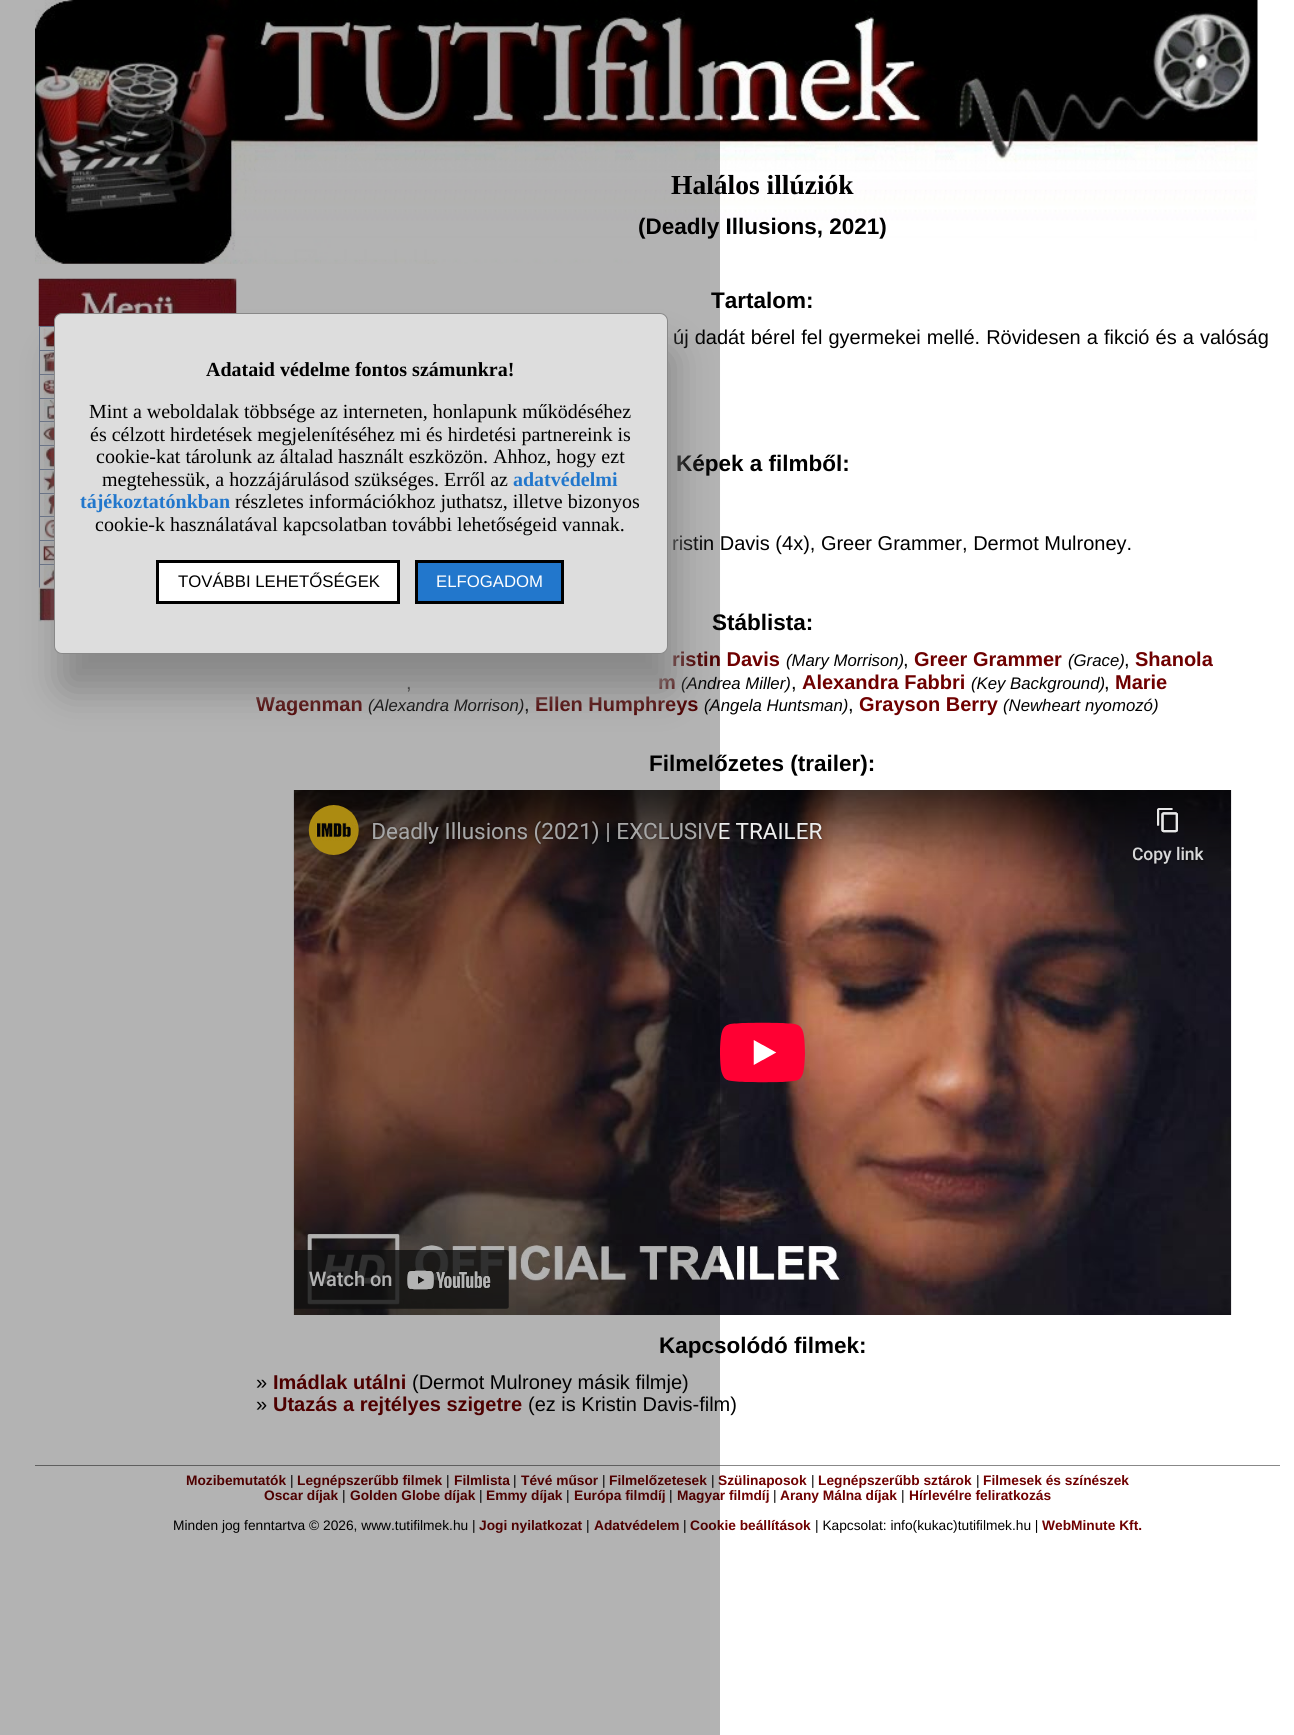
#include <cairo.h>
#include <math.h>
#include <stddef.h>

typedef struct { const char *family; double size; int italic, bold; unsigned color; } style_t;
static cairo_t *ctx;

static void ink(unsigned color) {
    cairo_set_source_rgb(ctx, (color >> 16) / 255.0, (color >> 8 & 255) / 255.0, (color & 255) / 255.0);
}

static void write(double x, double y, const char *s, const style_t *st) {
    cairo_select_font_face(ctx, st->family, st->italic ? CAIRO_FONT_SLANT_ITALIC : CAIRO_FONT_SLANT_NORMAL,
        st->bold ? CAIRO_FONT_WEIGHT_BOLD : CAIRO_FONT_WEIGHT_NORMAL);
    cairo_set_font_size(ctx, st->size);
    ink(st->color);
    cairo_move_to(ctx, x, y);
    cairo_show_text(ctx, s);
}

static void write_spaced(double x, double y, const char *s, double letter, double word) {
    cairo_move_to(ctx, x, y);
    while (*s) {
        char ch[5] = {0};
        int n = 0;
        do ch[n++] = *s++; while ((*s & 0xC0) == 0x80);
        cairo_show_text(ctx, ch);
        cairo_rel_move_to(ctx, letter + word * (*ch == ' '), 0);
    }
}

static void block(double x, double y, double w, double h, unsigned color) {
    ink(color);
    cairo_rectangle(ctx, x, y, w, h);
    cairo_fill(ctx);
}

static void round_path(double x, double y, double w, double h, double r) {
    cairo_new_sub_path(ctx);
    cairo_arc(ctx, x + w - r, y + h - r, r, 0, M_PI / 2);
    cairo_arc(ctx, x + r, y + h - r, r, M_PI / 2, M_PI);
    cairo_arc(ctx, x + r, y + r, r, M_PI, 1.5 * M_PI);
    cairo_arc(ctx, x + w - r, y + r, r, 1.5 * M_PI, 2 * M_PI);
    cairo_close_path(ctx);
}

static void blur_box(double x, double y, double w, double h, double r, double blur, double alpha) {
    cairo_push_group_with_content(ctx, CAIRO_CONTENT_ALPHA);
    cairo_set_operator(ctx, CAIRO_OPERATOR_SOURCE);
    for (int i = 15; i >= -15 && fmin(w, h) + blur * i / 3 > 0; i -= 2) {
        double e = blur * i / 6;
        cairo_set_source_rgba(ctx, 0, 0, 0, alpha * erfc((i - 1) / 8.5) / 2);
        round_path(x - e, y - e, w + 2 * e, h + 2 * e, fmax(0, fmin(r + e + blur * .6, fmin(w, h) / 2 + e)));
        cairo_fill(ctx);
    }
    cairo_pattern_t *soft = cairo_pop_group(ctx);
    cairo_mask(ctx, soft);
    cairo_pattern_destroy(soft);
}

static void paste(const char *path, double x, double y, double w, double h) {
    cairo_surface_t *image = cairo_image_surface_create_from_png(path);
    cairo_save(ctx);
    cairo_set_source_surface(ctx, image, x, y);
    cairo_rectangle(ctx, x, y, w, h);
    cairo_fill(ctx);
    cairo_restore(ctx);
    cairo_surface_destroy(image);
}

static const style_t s1 = {"Liberation Serif", 27.5, 0, 1, 0x000000};
static const style_t s2 = {"Liberation Sans", 22.5, 0, 1, 0x000000};
static const style_t s3 = {"Liberation Sans", 20, 0, 0, 0x000000};
static const style_t s4 = {"Liberation Sans", 20, 0, 1, 0x6f0000};
static const style_t s5 = {"Liberation Sans", 16.75, 1, 0, 0x000000};
static const style_t s6 = {"Liberation Sans", 13.75, 0, 1, 0x6f0000};
static const style_t s7 = {"Liberation Sans", 13.75, 0, 0, 0x000000};
static const style_t s8 = {"Liberation Serif", 20, 0, 1, 0x000000};
static const style_t s9 = {"Liberation Serif", 20, 0, 0, 0x000000};
static const style_t s10 = {"Liberation Serif", 20, 0, 1, 0x2277cc};
static const style_t s11 = {"Liberation Sans", 16.75, 0, 0, 0x000000};
static const style_t s12 = {"Liberation Sans", 16.75, 0, 0, 0xffffff};

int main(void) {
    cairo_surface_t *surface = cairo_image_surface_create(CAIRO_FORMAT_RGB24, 1294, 1735);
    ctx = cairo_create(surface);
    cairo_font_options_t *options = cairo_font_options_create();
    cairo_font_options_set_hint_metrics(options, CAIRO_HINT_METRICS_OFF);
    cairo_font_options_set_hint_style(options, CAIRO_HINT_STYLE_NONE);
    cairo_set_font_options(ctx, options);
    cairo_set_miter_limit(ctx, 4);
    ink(0xffffff);
    cairo_paint(ctx);
    paste("pic1.png", 35, 0, 1223, 264);
    paste("pic2.png", 38, 278, 199, 49);
    block(39, 326, 15, 1, 0x8c9cbe);
    block(39, 326, 1, 24, 0x8c9cbe);
    paste("pic3.png", 43, 328, 11, 21);
    block(39, 350, 15, 1, 0x8c9cbe);
    block(39, 350, 1, 24, 0x8c9cbe);
    paste("pic4.png", 43, 352, 11, 21);
    block(39, 374, 15, 1, 0x8c9cbe);
    block(39, 374, 1, 24, 0x8c9cbe);
    paste("pic5.png", 43, 376, 11, 20);
    block(39, 398, 15, 1, 0x8c9cbe);
    block(39, 398, 1, 23, 0x8c9cbe);
    paste("pic6.png", 43, 400, 11, 20);
    block(39, 421, 15, 1, 0x8c9cbe);
    block(39, 421, 1, 24, 0x8c9cbe);
    paste("pic7.png", 43, 424, 11, 19);
    block(39, 445, 15, 1, 0x8c9cbe);
    block(39, 445, 1, 24, 0x8c9cbe);
    paste("pic8.png", 43, 447, 11, 21);
    block(39, 469, 15, 1, 0x8c9cbe);
    block(39, 469, 1, 24, 0x8c9cbe);
    paste("pic9.png", 43, 471, 11, 20);
    block(39, 493, 15, 1, 0x8c9cbe);
    block(39, 493, 1, 23, 0x8c9cbe);
    paste("pic10.png", 44, 495, 10, 20);
    block(39, 516, 15, 1, 0x8c9cbe);
    block(39, 516, 1, 24, 0x8c9cbe);
    paste("pic11.png", 44, 518, 10, 21);
    block(39, 540, 15, 1, 0x8c9cbe);
    block(39, 540, 1, 24, 0x8c9cbe);
    paste("pic12.png", 43, 542, 11, 21);
    block(39, 564, 15, 1, 0x8c9cbe);
    block(39, 564, 1, 24, 0x8c9cbe);
    paste("pic13.png", 43, 566, 11, 20);
    paste("pic14.png", 38, 587, 16, 35);
    write(671, 194, "Halálos illúziók", &s1);
    write(638, 234, "(Deadly Illusions, 2021)", &s2);
    write(711, 308, "Tartalom:", &s2);
    cairo_select_font_face(ctx, "Liberation Sans", CAIRO_FONT_SLANT_NORMAL, CAIRO_FONT_WEIGHT_NORMAL);
    cairo_set_font_size(ctx, 20);
    write_spaced(673, 344, "új dadát bérel fel gyermekei mellé. Rövidesen a fikció és a valóság", 0, 0.5);
    write(676, 471, "Képek a filmből:", &s2);
    write(672, 550, "ristin Davis (4x), Greer Grammer, Dermot Mulroney.", &s3);
    write(712, 630, "Stáblista:", &s2);
    write(672, 666, "ristin Davis", &s4);
    write(786, 666, "(Mary Morrison)", &s5);
    write(903, 666, ",", &s3);
    write(914, 666, "Greer Grammer", &s4);
    write(1068, 666, "(Grace)", &s5);
    write(1124, 666, ",", &s3);
    write(1135, 666, "Shanola", &s4);
    write(406, 689, ",", &s3);
    write(658, 689, "m", &s4);
    write(681, 689, "(Andrea Miller)", &s5);
    write(791, 689, ",", &s3);
    write(802, 689, "Alexandra Fabbri", &s4);
    write(971, 689, "(Key Background)", &s5);
    write(1104, 689, ",", &s3);
    write(1115, 689, "Marie", &s4);
    write(256, 711, "Wagenman", &s4);
    write(368, 711, "(Alexandra Morrison)", &s5);
    write(524, 711, ",", &s3);
    write(535, 711, "Ellen Humphreys", &s4);
    write(704, 711, "(Angela Huntsman)", &s5);
    write(848, 711, ",", &s3);
    write(859, 711, "Grayson Berry", &s4);
    write(1003, 711, "(Newheart nyomozó)", &s5);
    write(649, 771, "Filmelőzetes (trailer):", &s2);
    paste("pic15.png", 293, 790, 939, 525);
    write(659, 1353, "Kapcsolódó filmek:", &s2);
    write(256, 1389, "»", &s3);
    write(273, 1389, "Imádlak utálni", &s4);
    write(412, 1389, "(Dermot Mulroney másik filmje)", &s3);
    write(256, 1411, "»", &s3);
    write(273, 1411, "Utazás a rejtélyes szigetre", &s4);
    write(528, 1411, "(ez is Kristin Davis-film)", &s3);
    block(35, 1465, 1245, 1, 0x888888);
    write(186, 1485, "Mozibemutatók", &s6);
    write(290, 1485, "|", &s7);
    write(297, 1485, "Legnépszerűbb filmek", &s6);
    write(446, 1485, "|", &s7);
    write(454, 1485, "Filmlista", &s6);
    write(513, 1485, "|", &s7);
    write(521, 1485, "Tévé műsor", &s6);
    write(602, 1485, "|", &s7);
    write(609, 1485, "Filmelőzetesek", &s6);
    write(711, 1485, "|", &s7);
    write(718, 1485, "Szülinaposok", &s6);
    write(811, 1485, "|", &s7);
    write(818, 1485, "Legnépszerűbb sztárok", &s6);
    write(976, 1485, "|", &s7);
    write(983, 1485, "Filmesek és színészek", &s6);
    write(264, 1500, "Oscar díjak", &s6);
    write(342, 1500, "|", &s7);
    write(350, 1500, "Golden Globe díjak", &s6);
    write(479, 1500, "|", &s7);
    write(486, 1500, "Emmy díjak", &s6);
    write(566, 1500, "|", &s7);
    write(574, 1500, "Európa filmdíj", &s6);
    write(669, 1500, "|", &s7);
    write(677, 1500, "Magyar filmdíj", &s6);
    write(773, 1500, "|", &s7);
    write(780, 1500, "Arany Málna díjak", &s6);
    write(901, 1500, "|", &s7);
    write(909, 1500, "Hírlevélre feliratkozás", &s6);
    write(173, 1530, "Minden jog fenntartva © 2026, www.tutifilmek.hu |", &s7);
    write(479, 1530, "Jogi nyilatkozat", &s6);
    write(586, 1530, "|", &s7);
    write(594, 1530, "Adatvédelem", &s6);
    write(683, 1530, "|", &s7);
    write(690, 1530, "Cookie beállítások", &s6);
    write(815, 1530, "| Kapcsolat: info(kukac)tutifilmek.hu |", &s7);
    write(1042, 1530, "WebMinute Kft.", &s6);
    cairo_set_source_rgba(ctx, 0, 0, 0, 0.3);
    cairo_rectangle(ctx, 0, 0, 720, 1735);
    cairo_fill(ctx);
    ink(0x888888);
    blur_box(60, 350, 614, 341, 8, 19, 1);
    ink(0xdddddd);
    round_path(54.5, 313.5, 613, 340, 7.5);
    cairo_fill_preserve(ctx);
    ink(0x888888);
    cairo_set_line_width(ctx, 1);
    cairo_stroke(ctx);
    write(206, 376, "Adataid védelme fontos számunkra!", &s8);
    write(89, 418, "Mint a weboldalak többsége az interneten, honlapunk működéséhez", &s9);
    write(90, 441, "és célzott hirdetések megjelenítéséhez mi és hirdetési partnereink is", &s9);
    write(96, 463, "cookie-kat tárolunk az általad használt eszközön. Ahhoz, hogy ezt", &s9);
    write(102, 486, "megtehessük, a hozzájárulásod szükséges. Erről az", &s9);
    write(513, 486, "adatvédelmi", &s10);
    write(80, 508, "tájékoztatónkban", &s10);
    write(235, 508, "részletes információkhoz juthatsz, illetve bizonyos", &s9);
    write(95, 531, "cookie-k használatával kapcsolatban további lehetőségeid vannak.", &s9);
    ink(0xffffff);
    cairo_rectangle(ctx, 157.5, 561.5, 241, 41);
    cairo_fill_preserve(ctx);
    ink(0x000000);
    cairo_set_line_width(ctx, 3);
    cairo_stroke(ctx);
    write(178, 587, "TOVÁBBI LEHETŐSÉGEK", &s11);
    ink(0x2277cc);
    cairo_rectangle(ctx, 416.5, 561.5, 146, 41);
    cairo_fill_preserve(ctx);
    ink(0x000000);
    cairo_stroke(ctx);
    write(436, 587, "ELFOGADOM", &s12);
    cairo_surface_write_to_png(surface, "screenshot.png");
    cairo_font_options_destroy(options);
    cairo_destroy(ctx);
    cairo_surface_destroy(surface);
    return 0;
}
